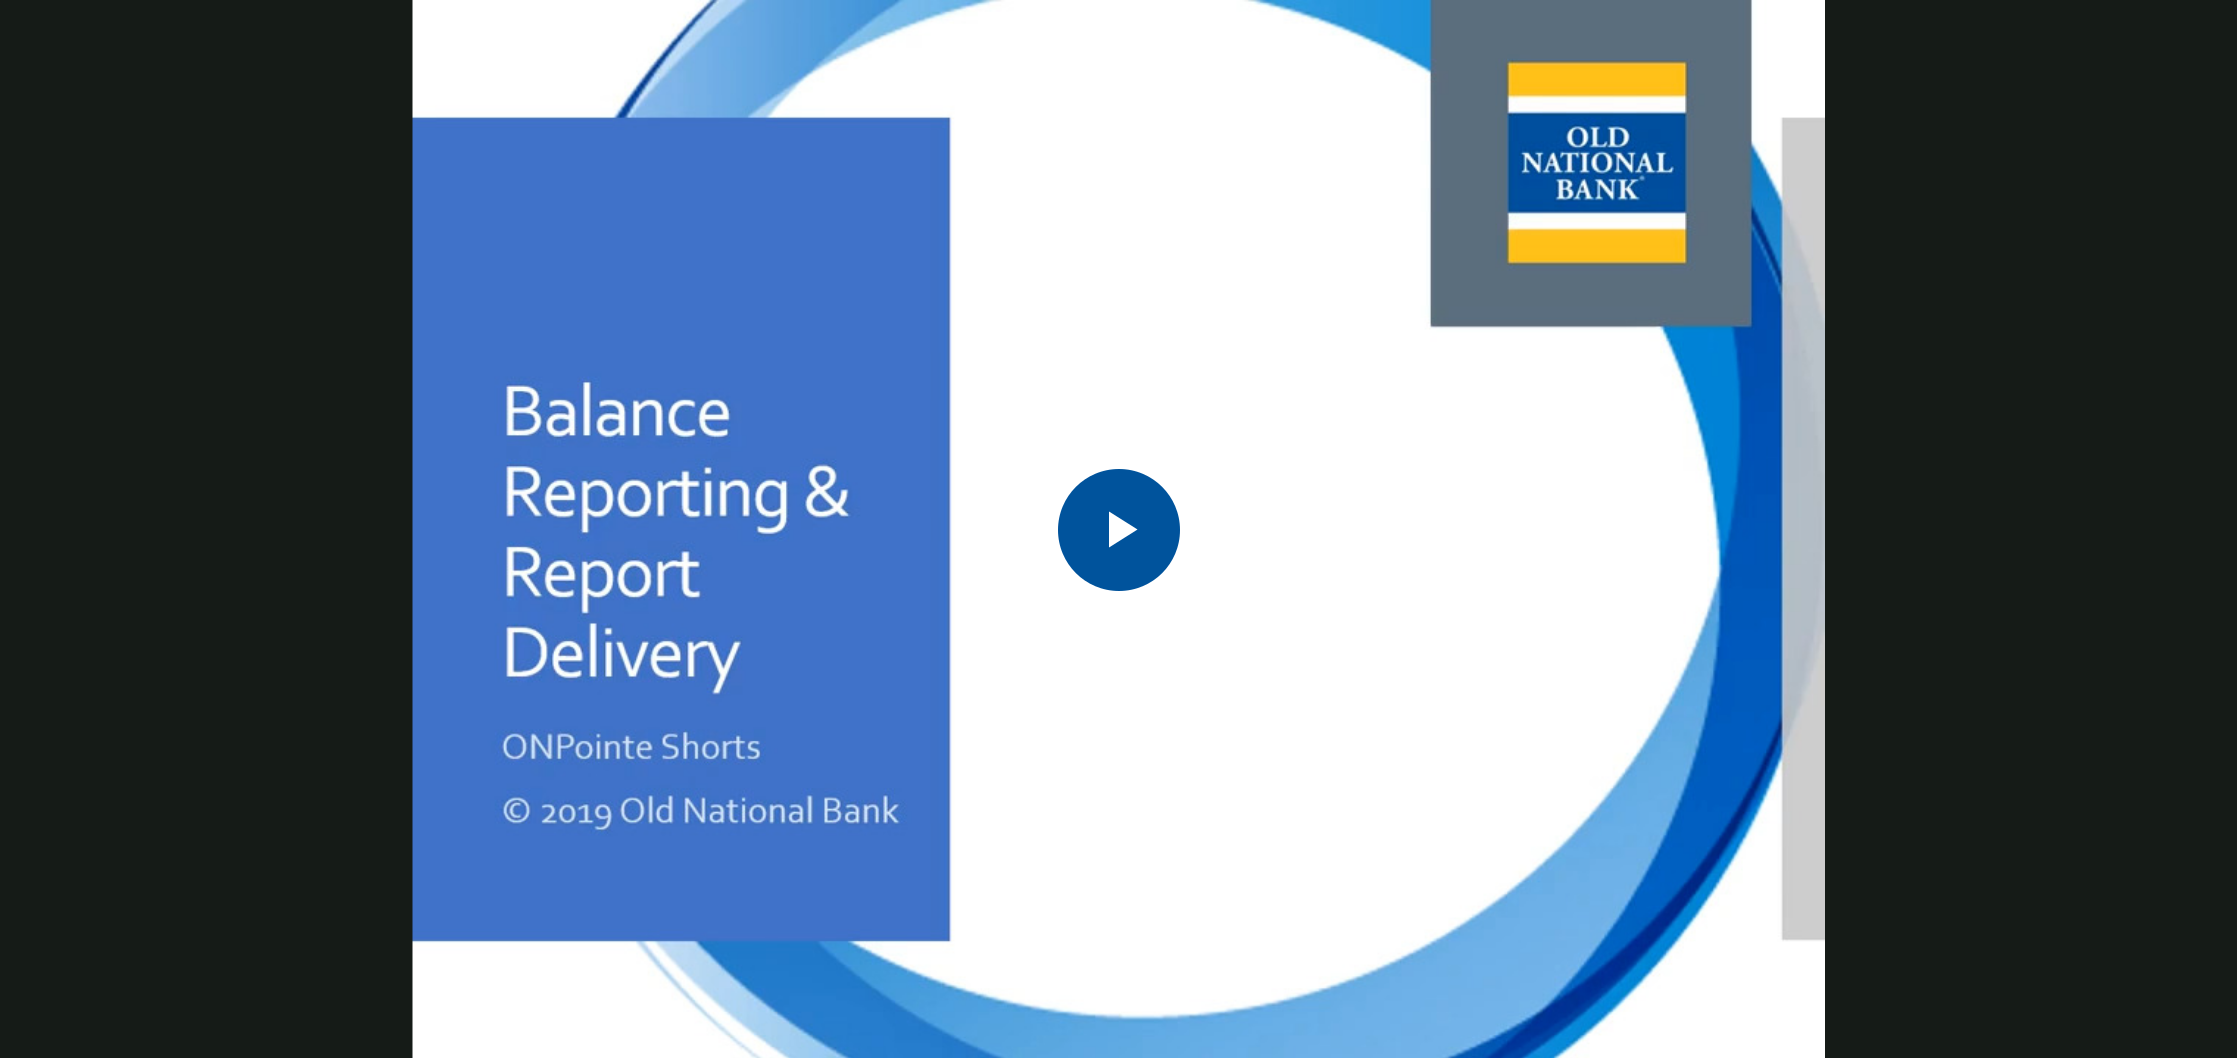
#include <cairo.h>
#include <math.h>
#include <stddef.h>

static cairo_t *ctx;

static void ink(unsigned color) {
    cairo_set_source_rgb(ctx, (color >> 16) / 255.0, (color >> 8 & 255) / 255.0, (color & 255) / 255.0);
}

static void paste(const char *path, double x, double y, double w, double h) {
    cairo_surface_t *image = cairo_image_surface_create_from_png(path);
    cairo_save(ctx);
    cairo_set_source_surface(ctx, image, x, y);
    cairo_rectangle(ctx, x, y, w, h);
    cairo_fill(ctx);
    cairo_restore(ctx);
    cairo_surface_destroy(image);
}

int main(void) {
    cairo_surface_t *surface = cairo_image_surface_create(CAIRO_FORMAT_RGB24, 2237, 1058);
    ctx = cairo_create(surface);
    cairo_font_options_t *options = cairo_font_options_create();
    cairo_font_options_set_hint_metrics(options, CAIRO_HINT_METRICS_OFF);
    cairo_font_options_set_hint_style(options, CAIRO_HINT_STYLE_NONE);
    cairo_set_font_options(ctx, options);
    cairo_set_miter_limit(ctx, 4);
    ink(0x151b17);
    cairo_paint(ctx);
    paste("pic1.png", 412, 0, 1413, 1058);
    ink(0x00539c);
    cairo_arc(ctx, 1119, 530, 61, 0, 2 * M_PI);
    cairo_fill(ctx);
    ink(0xffffff);
    cairo_new_path(ctx);
    cairo_move_to(ctx, 1109, 511.5);
    cairo_line_to(ctx, 1109, 547.5);
    cairo_line_to(ctx, 1137.5, 529.5);
    cairo_close_path(ctx);
    cairo_fill(ctx);
    cairo_surface_write_to_png(surface, "screenshot.png");
    cairo_font_options_destroy(options);
    cairo_destroy(ctx);
    cairo_surface_destroy(surface);
    return 0;
}
